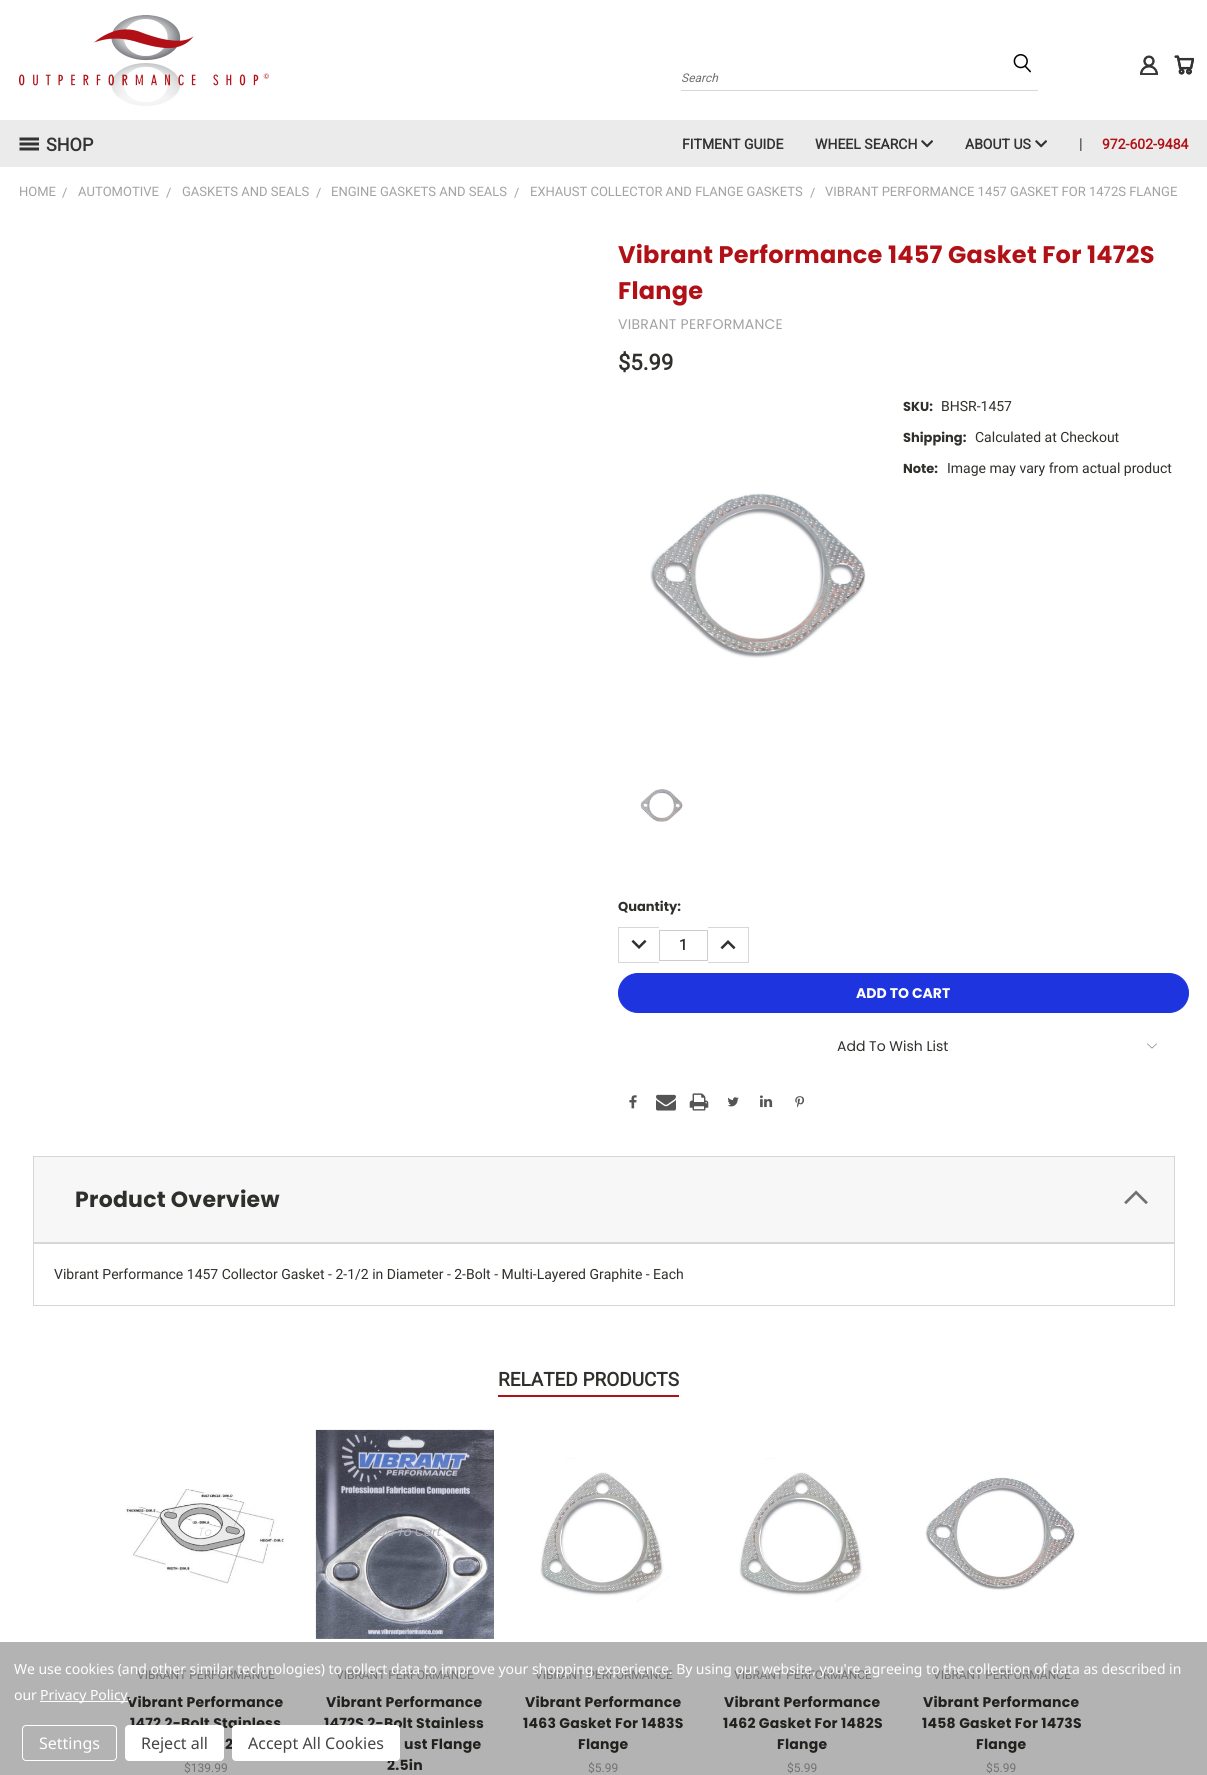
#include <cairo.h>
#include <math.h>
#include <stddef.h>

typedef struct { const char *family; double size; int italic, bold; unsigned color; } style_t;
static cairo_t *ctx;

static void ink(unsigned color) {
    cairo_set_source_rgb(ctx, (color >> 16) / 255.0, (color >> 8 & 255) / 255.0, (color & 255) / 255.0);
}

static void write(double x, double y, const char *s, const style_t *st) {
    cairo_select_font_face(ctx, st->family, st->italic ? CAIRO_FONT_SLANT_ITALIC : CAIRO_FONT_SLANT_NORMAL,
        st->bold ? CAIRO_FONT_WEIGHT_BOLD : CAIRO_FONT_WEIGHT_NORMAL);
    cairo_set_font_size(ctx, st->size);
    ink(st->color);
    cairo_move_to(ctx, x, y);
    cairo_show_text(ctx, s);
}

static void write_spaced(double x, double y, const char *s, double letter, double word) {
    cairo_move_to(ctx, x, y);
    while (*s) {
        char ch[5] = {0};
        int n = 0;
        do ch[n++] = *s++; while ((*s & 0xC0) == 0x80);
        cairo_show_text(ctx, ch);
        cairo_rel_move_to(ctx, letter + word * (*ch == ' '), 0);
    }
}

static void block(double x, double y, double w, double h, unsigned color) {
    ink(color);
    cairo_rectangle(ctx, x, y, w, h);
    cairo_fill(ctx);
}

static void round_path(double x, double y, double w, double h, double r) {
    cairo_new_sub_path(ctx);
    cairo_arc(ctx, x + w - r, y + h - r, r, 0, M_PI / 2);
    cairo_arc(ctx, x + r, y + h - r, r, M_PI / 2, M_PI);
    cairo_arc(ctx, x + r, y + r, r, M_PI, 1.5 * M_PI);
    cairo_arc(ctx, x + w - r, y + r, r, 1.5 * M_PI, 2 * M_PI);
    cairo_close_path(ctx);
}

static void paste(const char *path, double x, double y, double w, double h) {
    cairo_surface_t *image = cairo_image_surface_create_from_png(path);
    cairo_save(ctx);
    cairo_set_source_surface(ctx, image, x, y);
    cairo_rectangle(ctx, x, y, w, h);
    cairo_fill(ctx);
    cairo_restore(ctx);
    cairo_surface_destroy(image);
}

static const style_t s1 = {"Roboto", 12, 1, 0, 0x717171};
static const style_t s2 = {"Roboto", 18, 0, 1, 0x333333};
static const style_t s3 = {"Roboto", 14, 0, 1, 0x333333};
static const style_t s4 = {"Roboto", 15, 0, 0, 0x2f2f2b};
static const style_t s5 = {"Roboto", 14, 0, 1, 0xb11116};
static const style_t s6 = {"Roboto", 13, 0, 0, 0xa2a2a2};
static const style_t s7 = {"Roboto", 22, 0, 1, 0x2f2f2b};
static const style_t s8 = {"Poppins", 13, 0, 1, 0x2f2f2b};
static const style_t s9 = {"Roboto", 14, 0, 0, 0x2f2f2b};
static const style_t s10 = {"Roboto", 15, 0, 1, 0x2f2f2b};
static const style_t s11 = {"Poppins", 14, 0, 1, 0xffffff};
static const style_t s12 = {"Poppins", 14, 0, 0, 0x2f2f2b};
static const style_t s13 = {"Roboto", 19, 0, 1, 0x2f2f2b};
static const style_t s14 = {"Poppins", 12, 1, 0, 0xdfdfdf};
static const style_t s15 = {"Roboto", 12, 0, 0, 0x717171};
static const style_t s16 = {"Poppins", 12, 1, 0, 0xb1b2b9};
static const style_t s17 = {"Noto Sans", 16, 0, 0, 0xffffff};
static const style_t s18 = {"Noto Sans", 16, 0, 0, 0x454545};

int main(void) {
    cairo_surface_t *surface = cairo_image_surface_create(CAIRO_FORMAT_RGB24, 1207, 1775);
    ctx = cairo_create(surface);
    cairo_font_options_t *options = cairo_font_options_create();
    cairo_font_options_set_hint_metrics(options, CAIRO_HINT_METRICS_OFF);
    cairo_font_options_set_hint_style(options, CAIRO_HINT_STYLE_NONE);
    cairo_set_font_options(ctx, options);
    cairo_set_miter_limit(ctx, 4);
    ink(0xffffff);
    cairo_paint(ctx);
    block(0, 1642, 1207, 133, 0xb3b3b3);
    paste("pic1.png", 19, 15, 250, 91);
    paste("pic2.png", 1140, 55, 18, 20);
    paste("pic3.png", 1174, 55, 20, 20);
    paste("pic4.png", 1013, 54, 18, 19);
    block(681, 90, 357, 1, 0xd7d7d7);
    write(681, 82, "Search", &s1);
    block(0, 120, 1207, 47, 0xebebeb);
    paste("pic5.png", 19, 137, 20, 14);
    write(46, 151, "SHOP", &s2);
    write(682, 149, "FITMENT GUIDE", &s3);
    write(815, 149, "WHEEL SEARCH", &s3);
    paste("pic6.png", 921, 140, 12, 8);
    write(965, 149, "ABOUT US", &s3);
    paste("pic6.png", 1035, 140, 12, 8);
    write(1079, 149, "|", &s4);
    write(1102, 149, "972-602-9484", &s5);
    write(19, 196, "HOME", &s6);
    write(62, 197, "/", &s6);
    write(78, 196, "AUTOMOTIVE", &s6);
    write(166, 197, "/", &s6);
    write(182, 196, "GASKETS AND SEALS", &s6);
    write(316, 197, "/", &s6);
    write(331, 196, "ENGINE GASKETS AND SEALS", &s6);
    write(514, 197, "/", &s6);
    write(530, 196, "EXHAUST COLLECTOR AND FLANGE GASKETS", &s6);
    write(810, 197, "/", &s6);
    write(825, 196, "VIBRANT PERFORMANCE 1457 GASKET FOR 1472S FLANGE", &s6);
    cairo_select_font_face(ctx, "Poppins", CAIRO_FONT_SLANT_NORMAL, CAIRO_FONT_WEIGHT_BOLD);
    cairo_set_font_size(ctx, 24);
    ink(0xb11116);
    write_spaced(618, 263, "Vibrant Performance 1457 Gasket For 1472S", 0.25, 0);
    write_spaced(618, 299, "Flange", 0.25, 0);
    cairo_select_font_face(ctx, "Poppins", CAIRO_FONT_SLANT_NORMAL, CAIRO_FONT_WEIGHT_NORMAL);
    cairo_set_font_size(ctx, 14);
    ink(0xa2a2a2);
    write_spaced(618, 329, "VIBRANT PERFORMANCE", 0.25, 0);
    write(618, 370, "$5.99", &s7);
    write(903, 411, "SKU:", &s8);
    write(941, 411, "BHSR-1457", &s9);
    write(903, 442, "Shipping:", &s8);
    write(975, 442, "Calculated at Checkout", &s9);
    write(903, 473, "Note:", &s8);
    write(947, 473, "Image may vary from actual product", &s9);
    paste("pic7.png", 650, 493, 216, 165);
    paste("pic8.png", 640, 789, 43, 33);
    write(618, 911, "Quantity:", &s8);
    block(618, 927, 41, 1, 0xd7d7d7);
    block(618, 962, 41, 1, 0xd7d7d7);
    block(618, 927, 1, 36, 0xd7d7d7);
    paste("pic9.png", 631, 939, 16, 10);
    cairo_rectangle(ctx, 659.5, 930.5, 48, 30);
    ink(0xcccccc);
    cairo_set_line_width(ctx, 1);
    cairo_stroke(ctx);
    write(679, 950, "1", &s10);
    block(708, 927, 41, 1, 0xd7d7d7);
    block(748, 927, 1, 36, 0xd7d7d7);
    block(708, 962, 41, 1, 0xd7d7d7);
    paste("pic10.png", 720, 940, 16, 10);
    ink(0x1e34df);
    round_path(618.5, 973.5, 570, 39, 19.5);
    cairo_fill_preserve(ctx);
    cairo_stroke(ctx);
    write(856, 998, "ADD TO CART", &s11);
    write(837, 1051, "Add To Wish List", &s12);
    paste("pic11.png", 1147, 1043, 10, 6);
    paste("pic12.png", 629, 1095, 8, 14);
    paste("pic13.png", 656, 1094, 20, 17);
    paste("pic14.png", 689, 1093, 20, 18);
    paste("pic15.png", 727, 1097, 12, 10);
    paste("pic16.png", 760, 1095, 13, 13);
    paste("pic17.png", 795, 1096, 9, 12);
    ink(0xf7f7f7);
    cairo_rectangle(ctx, 33.5, 1156.5, 1141, 86);
    cairo_fill_preserve(ctx);
    ink(0xd7d7d7);
    cairo_stroke(ctx);
    cairo_select_font_face(ctx, "Poppins", CAIRO_FONT_SLANT_NORMAL, CAIRO_FONT_WEIGHT_BOLD);
    cairo_set_font_size(ctx, 22);
    ink(0x2f2f2b);
    write_spaced(75, 1207, "Product Overview", 0.25, 0);
    paste("pic18.png", 1124, 1190, 24, 14);
    cairo_rectangle(ctx, 33.5, 1243.5, 1141, 62);
    ink(0xd7d7d7);
    cairo_stroke(ctx);
    write(54, 1279, "Vibrant Performance 1457 Collector Gasket - 2-1/2 in Diameter - 2-Bolt - Multi-Layered Graphite - Each", &s9);
    block(498, 1395, 181, 2, 0xb11116);
    write(498, 1386, "RELATED PRODUCTS", &s13);
    paste("pic19.png", 126, 1489, 158, 95);
    write(197, 1536, "To", &s14);
    write(137, 1679, "VIBRANT PERFORMANCE", &s15);
    cairo_select_font_face(ctx, "Poppins", CAIRO_FONT_SLANT_NORMAL, CAIRO_FONT_WEIGHT_BOLD);
    cairo_set_font_size(ctx, 14);
    ink(0x21211e);
    write_spaced(127, 1707, "Vibrant Performance", 0.25, 0);
    write_spaced(130, 1728, "1472 2-Bolt Stainless", 0.25, 0);
    write_spaced(225, 1749, "2", 0.25, 0);
    write(184, 1772, "$139.99", &s15);
    paste("pic20.png", 315, 1429, 179, 210);
    write(369, 1536, "Add To Cart", &s16);
    write(336, 1679, "VIBRANT PERFORMANCE", &s15);
    cairo_select_font_face(ctx, "Poppins", CAIRO_FONT_SLANT_NORMAL, CAIRO_FONT_WEIGHT_BOLD);
    cairo_set_font_size(ctx, 14);
    ink(0x21211e);
    write_spaced(326, 1707, "Vibrant Performance", 0.25, 0);
    write_spaced(324, 1728, "1472S 2-Bolt Stainless", 0.25, 0);
    write_spaced(404, 1749, "ust Flange", 0.25, 0);
    write_spaced(387, 1770, "2.5in", 0.25, 0);
    paste("pic21.png", 540, 1458, 129, 144);
    write(535, 1679, "VIBRANT PERFORMANCE", &s15);
    cairo_select_font_face(ctx, "Poppins", CAIRO_FONT_SLANT_NORMAL, CAIRO_FONT_WEIGHT_BOLD);
    cairo_set_font_size(ctx, 14);
    ink(0x21211e);
    write_spaced(525, 1707, "Vibrant Performance", 0.25, 0);
    write_spaced(523, 1728, "1463 Gasket For 1483S", 0.25, 0);
    write_spaced(578, 1749, "Flange", 0.25, 0);
    write(588, 1772, "$5.99", &s15);
    paste("pic22.png", 739, 1458, 129, 144);
    write(734, 1679, "VIBRANT PERFORMANCE", &s15);
    cairo_select_font_face(ctx, "Poppins", CAIRO_FONT_SLANT_NORMAL, CAIRO_FONT_WEIGHT_BOLD);
    cairo_set_font_size(ctx, 14);
    ink(0x21211e);
    write_spaced(724, 1707, "Vibrant Performance", 0.25, 0);
    write_spaced(723, 1728, "1462 Gasket For 1482S", 0.25, 0);
    write_spaced(777, 1749, "Flange", 0.25, 0);
    write(787, 1772, "$5.99", &s15);
    paste("pic23.png", 925, 1477, 152, 113);
    write(933, 1679, "VIBRANT PERFORMANCE", &s15);
    cairo_select_font_face(ctx, "Poppins", CAIRO_FONT_SLANT_NORMAL, CAIRO_FONT_WEIGHT_BOLD);
    cairo_set_font_size(ctx, 14);
    ink(0x21211e);
    write_spaced(923, 1707, "Vibrant Performance", 0.25, 0);
    write_spaced(922, 1728, "1458 Gasket For 1473S", 0.25, 0);
    write_spaced(976, 1749, "Flange", 0.25, 0);
    write(986, 1772, "$5.99", &s15);
    cairo_select_font_face(ctx, "Noto Sans", CAIRO_FONT_SLANT_NORMAL, CAIRO_FONT_WEIGHT_NORMAL);
    cairo_set_font_size(ctx, 14);
    ink(0xffffff);
    write_spaced(14, 1674, "We use cookies (and other similar technologies) to collect data to improve your shopping experience. By using our website, you're agreeing to the collection of data as described in", -0.05, 0);
    write_spaced(14, 1700, "our", -0.05, 0);
    block(40, 1701, 88, 1, 0xffffff);
    write_spaced(40, 1700, "Privacy Policy.", -0.05, 0);
    round_path(22.5, 1725.5, 94, 35, 3.5);
    cairo_stroke(ctx);
    write(39, 1749, "Settings", &s17);
    round_path(125, 1725, 99, 36, 4);
    cairo_fill(ctx);
    write(141, 1749, "Reject all", &s18);
    ink(0xffffff);
    round_path(232, 1725, 168, 36, 4);
    cairo_fill(ctx);
    write(248, 1749, "Accept All Cookies", &s18);
    cairo_surface_write_to_png(surface, "screenshot.png");
    cairo_font_options_destroy(options);
    cairo_destroy(ctx);
    cairo_surface_destroy(surface);
    return 0;
}
